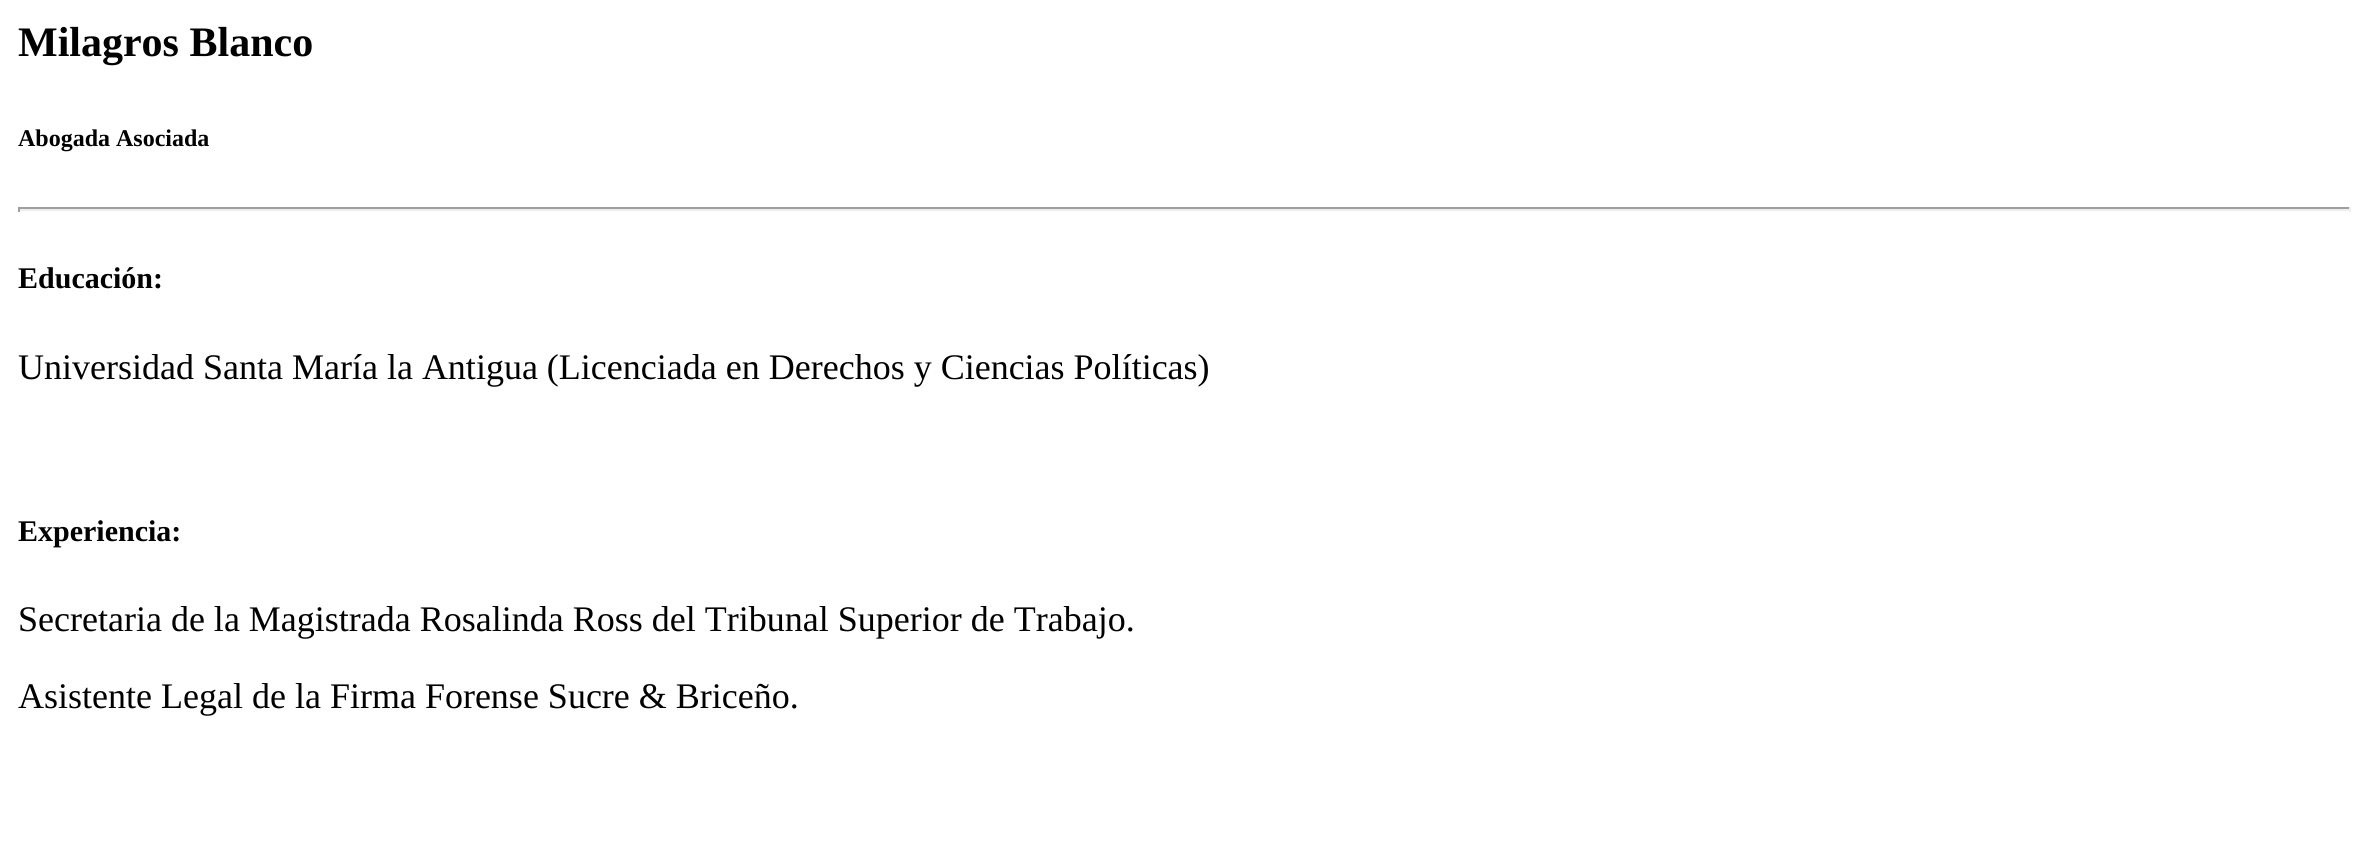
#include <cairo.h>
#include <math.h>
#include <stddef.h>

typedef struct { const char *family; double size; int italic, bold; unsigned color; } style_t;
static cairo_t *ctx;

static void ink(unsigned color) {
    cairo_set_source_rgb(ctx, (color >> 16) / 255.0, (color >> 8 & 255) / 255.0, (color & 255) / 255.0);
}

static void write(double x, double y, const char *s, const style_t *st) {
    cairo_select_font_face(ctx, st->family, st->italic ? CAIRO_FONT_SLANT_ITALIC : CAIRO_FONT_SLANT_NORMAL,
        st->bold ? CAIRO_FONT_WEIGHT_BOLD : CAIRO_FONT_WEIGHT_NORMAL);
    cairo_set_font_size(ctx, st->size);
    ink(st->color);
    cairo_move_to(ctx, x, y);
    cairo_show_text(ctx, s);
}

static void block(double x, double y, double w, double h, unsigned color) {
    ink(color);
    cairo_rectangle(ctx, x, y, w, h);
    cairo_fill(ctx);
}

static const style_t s1 = {"Liberation Serif", 42, 0, 1, 0x000000};
static const style_t s2 = {"Liberation Serif", 24, 0, 1, 0x000000};
static const style_t s3 = {"Liberation Serif", 30, 0, 1, 0x000000};
static const style_t s4 = {"Liberation Serif", 36, 0, 0, 0x000000};

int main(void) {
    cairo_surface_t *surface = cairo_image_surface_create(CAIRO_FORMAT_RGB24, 2369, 852);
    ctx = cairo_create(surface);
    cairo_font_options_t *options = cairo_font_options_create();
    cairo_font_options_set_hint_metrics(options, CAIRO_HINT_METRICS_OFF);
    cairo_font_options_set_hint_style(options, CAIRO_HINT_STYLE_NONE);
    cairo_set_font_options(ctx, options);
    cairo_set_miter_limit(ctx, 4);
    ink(0xffffff);
    cairo_paint(ctx);
    write(18, 56, "Milagros Blanco", &s1);
    write(18, 146, "Abogada Asociada", &s2);
    block(18, 207, 2333, 2, 0x9f9f9f);
    block(2349, 207, 2, 5, 0xeeeeee);
    block(18, 209, 2333, 2, 0xeeeeee);
    block(18, 207, 2, 5, 0x9f9f9f);
    write(18, 288, "Educación:", &s3);
    write(18, 379, "Universidad Santa María la Antigua (Licenciada en Derechos y Ciencias Políticas)", &s4);
    write(18, 541, "Experiencia:", &s3);
    write(18, 631, "Secretaria de la Magistrada Rosalinda Ross del Tribunal Superior de Trabajo.", &s4);
    write(18, 708, "Asistente Legal de la Firma Forense Sucre & Briceño.", &s4);
    cairo_surface_write_to_png(surface, "screenshot.png");
    cairo_font_options_destroy(options);
    cairo_destroy(ctx);
    cairo_surface_destroy(surface);
    return 0;
}
